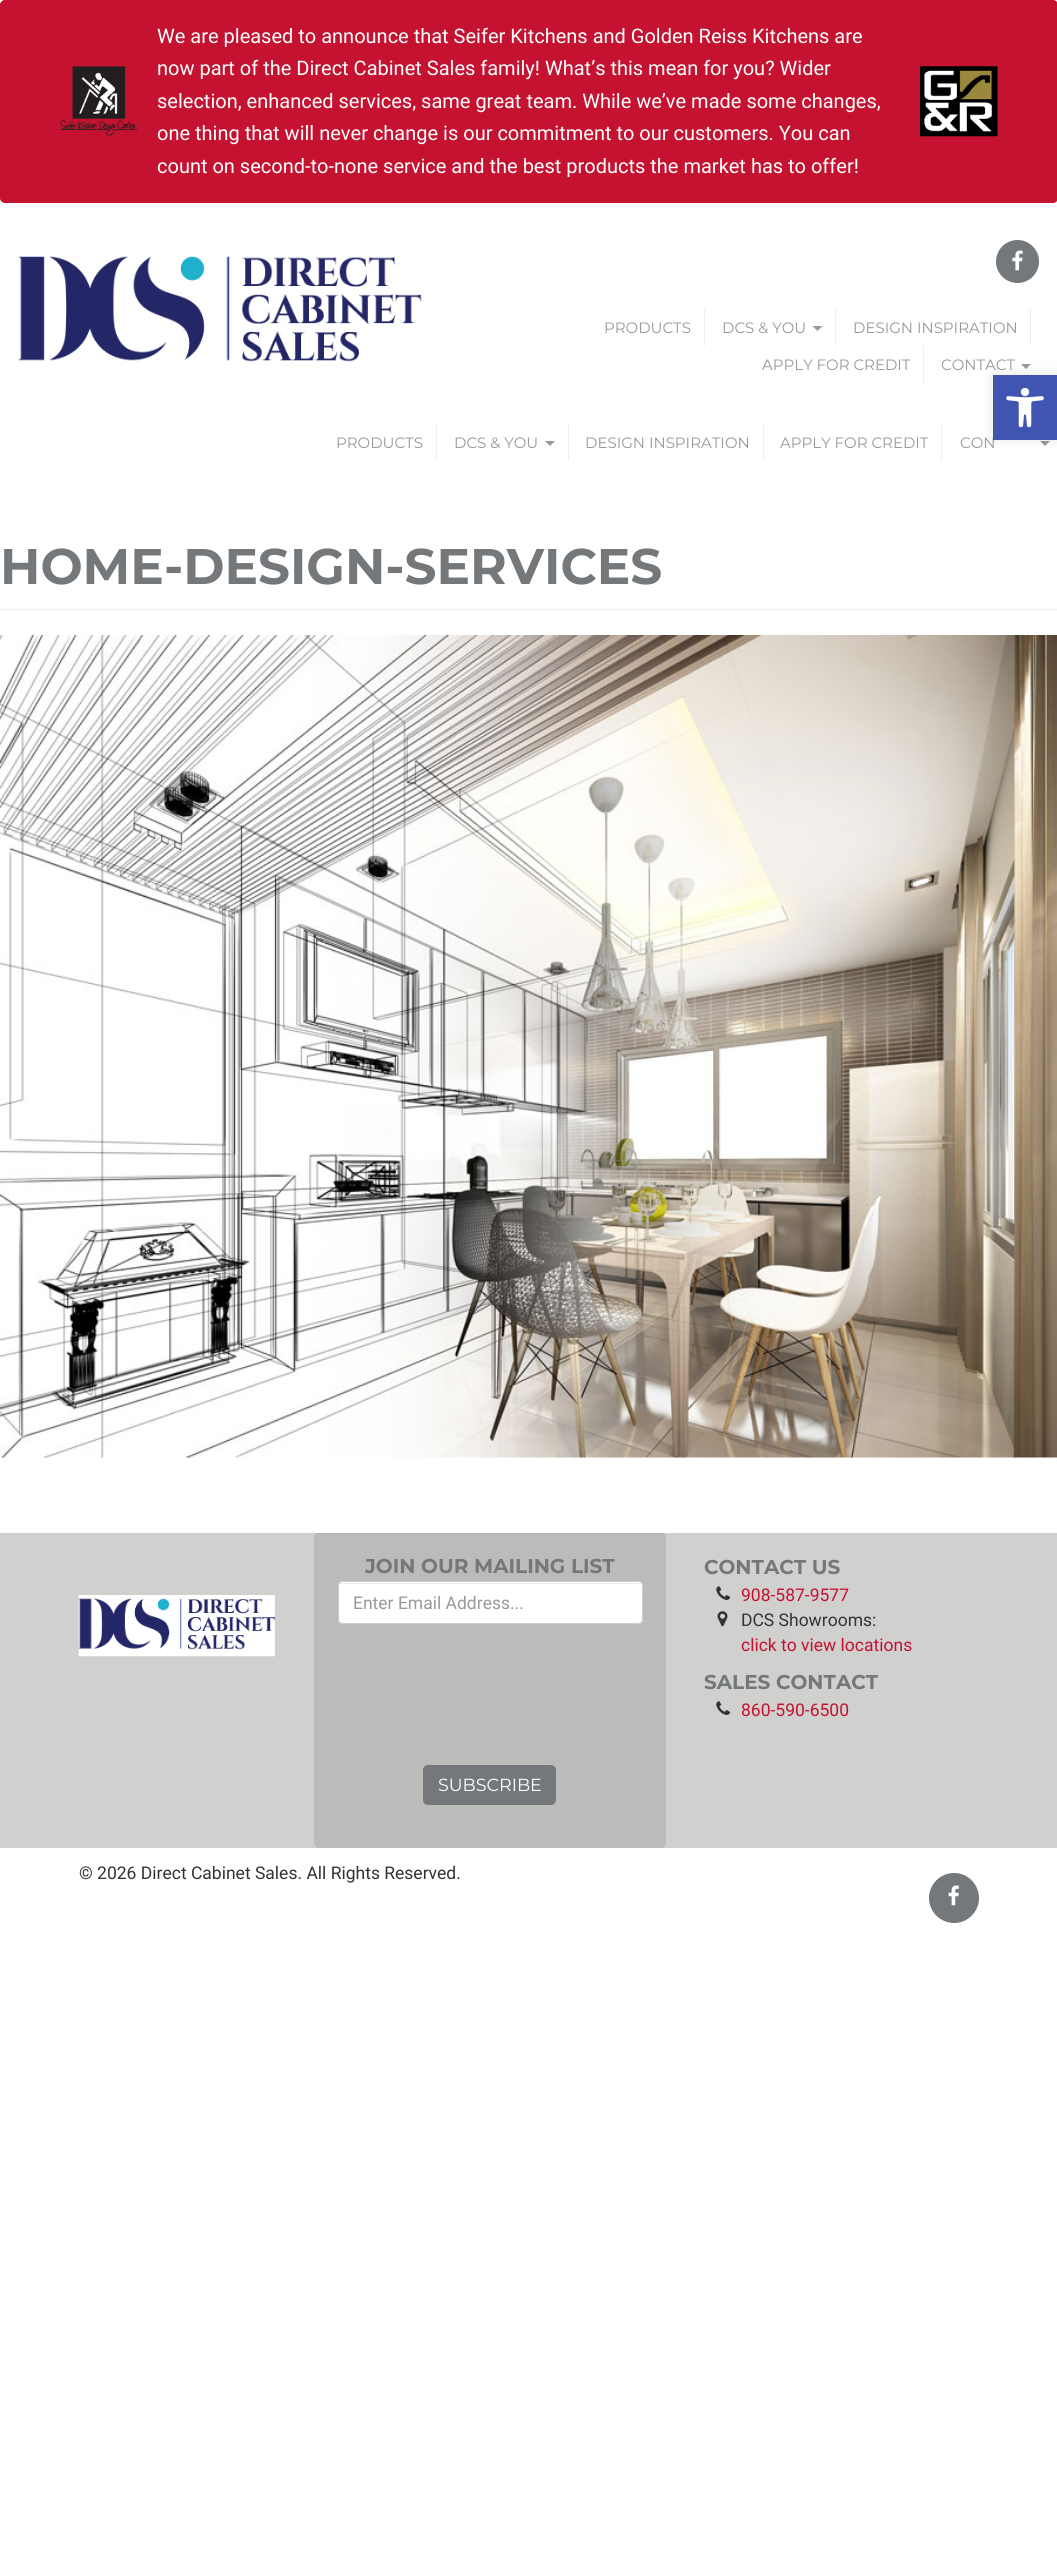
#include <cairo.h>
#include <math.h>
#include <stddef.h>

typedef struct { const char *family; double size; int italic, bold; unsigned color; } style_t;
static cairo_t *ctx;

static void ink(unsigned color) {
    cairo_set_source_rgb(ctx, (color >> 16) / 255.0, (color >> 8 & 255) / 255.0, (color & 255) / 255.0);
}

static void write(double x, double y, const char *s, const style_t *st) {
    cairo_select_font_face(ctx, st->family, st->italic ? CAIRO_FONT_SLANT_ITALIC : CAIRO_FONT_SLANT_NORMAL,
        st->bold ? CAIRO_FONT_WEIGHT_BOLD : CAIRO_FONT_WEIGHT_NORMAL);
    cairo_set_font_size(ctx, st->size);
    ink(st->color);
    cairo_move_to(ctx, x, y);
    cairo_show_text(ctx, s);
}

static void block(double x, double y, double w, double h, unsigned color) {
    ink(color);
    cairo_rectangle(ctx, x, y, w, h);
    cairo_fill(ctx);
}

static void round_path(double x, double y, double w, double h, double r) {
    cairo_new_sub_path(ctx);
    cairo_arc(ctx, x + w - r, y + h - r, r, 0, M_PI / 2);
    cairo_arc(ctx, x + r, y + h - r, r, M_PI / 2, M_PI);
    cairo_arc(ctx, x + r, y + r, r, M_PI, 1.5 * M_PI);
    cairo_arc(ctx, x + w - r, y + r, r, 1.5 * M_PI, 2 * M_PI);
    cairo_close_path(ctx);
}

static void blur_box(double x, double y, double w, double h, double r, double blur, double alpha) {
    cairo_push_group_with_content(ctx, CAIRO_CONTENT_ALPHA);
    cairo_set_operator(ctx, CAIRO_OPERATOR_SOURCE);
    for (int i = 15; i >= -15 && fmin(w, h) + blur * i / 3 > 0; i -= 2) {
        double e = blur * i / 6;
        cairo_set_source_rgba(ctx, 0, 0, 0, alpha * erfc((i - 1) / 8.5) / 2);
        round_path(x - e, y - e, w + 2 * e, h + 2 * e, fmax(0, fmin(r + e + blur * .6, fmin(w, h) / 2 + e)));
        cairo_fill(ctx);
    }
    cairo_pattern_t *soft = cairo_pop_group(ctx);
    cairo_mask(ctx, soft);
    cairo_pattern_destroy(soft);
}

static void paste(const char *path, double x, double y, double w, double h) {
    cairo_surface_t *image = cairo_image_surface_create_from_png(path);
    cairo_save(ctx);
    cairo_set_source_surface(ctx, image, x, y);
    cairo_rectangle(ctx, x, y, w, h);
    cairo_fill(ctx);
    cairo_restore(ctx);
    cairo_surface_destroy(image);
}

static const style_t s1 = {"Roboto", 20, 0, 0, 0xffffff};
static const style_t s2 = {"Montserrat", 15, 0, 0, 0x999999};
static const style_t s3 = {"Montserrat", 50, 0, 1, 0x75787b};
static const style_t s4 = {"Montserrat", 20, 0, 1, 0x75787b};
static const style_t s5 = {"Roboto", 17.5, 0, 0, 0x999999};
static const style_t s6 = {"Montserrat", 17.5, 0, 0, 0xffffff};
static const style_t s7 = {"Roboto", 17.5, 0, 0, 0xc41230};
static const style_t s8 = {"Roboto", 17.5, 0, 0, 0x333333};

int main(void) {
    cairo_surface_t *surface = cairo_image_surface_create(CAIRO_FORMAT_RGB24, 1057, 2560);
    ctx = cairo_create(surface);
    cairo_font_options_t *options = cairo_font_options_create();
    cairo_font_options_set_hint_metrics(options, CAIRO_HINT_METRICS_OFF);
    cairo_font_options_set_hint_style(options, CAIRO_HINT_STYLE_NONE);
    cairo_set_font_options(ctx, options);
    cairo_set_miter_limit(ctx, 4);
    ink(0xffffff);
    cairo_paint(ctx);
    ink(0xc41230);
    round_path(0.5, 0.5, 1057, 202, 4.5);
    cairo_fill_preserve(ctx);
    cairo_set_line_width(ctx, 1);
    cairo_stroke(ctx);
    paste("pic1.png", 60, 66, 78, 70);
    write(157, 43, "We are pleased to announce that Seifer Kitchens and Golden Reiss Kitchens are", &s1);
    write(157, 75, "now part of the Direct Cabinet Sales family! What’s this mean for you? Wider", &s1);
    write(157, 108, "selection, enhanced services, same great team. While we’ve made some changes,", &s1);
    write(157, 140, "one thing that will never change is our commitment to our customers. You can", &s1);
    write(157, 173, "count on second-to-none service and the best products the market has to offer!", &s1);
    paste("pic2.png", 920, 66, 78, 71);
    paste("pic3.png", 18, 256, 404, 106);
    ink(0x75787b);
    cairo_arc(ctx, 1017.5, 261.5, 21.5, 0, 2 * M_PI);
    cairo_fill(ctx);
    paste("pic4.png", 1012, 250, 11, 21);
    block(704, 309, 1, 37, 0xeeeeee);
    write(604, 333, "PRODUCTS", &s2);
    block(835, 309, 1, 37, 0xeeeeee);
    write(722, 333, "DCS & YOU", &s2);
    cairo_new_path(ctx);
    cairo_move_to(ctx, 812.5, 326);
    cairo_line_to(ctx, 822.5, 326);
    cairo_line_to(ctx, 817.5, 331);
    cairo_close_path(ctx);
    cairo_fill(ctx);
    block(1030, 309, 1, 37, 0xeeeeee);
    write(853, 333, "DESIGN INSPIRATION", &s2);
    block(923, 346, 1, 38, 0xeeeeee);
    write(762, 370, "APPLY FOR CREDIT", &s2);
    write(941, 370, "CONTACT", &s2);
    cairo_new_path(ctx);
    cairo_move_to(ctx, 1021, 364);
    cairo_line_to(ctx, 1031, 364);
    cairo_line_to(ctx, 1026, 369);
    cairo_close_path(ctx);
    cairo_fill(ctx);
    block(436, 424, 1, 37, 0xeeeeee);
    write(336, 448, "PRODUCTS", &s2);
    block(568, 424, 1, 37, 0xeeeeee);
    write(454, 448, "DCS & YOU", &s2);
    cairo_new_path(ctx);
    cairo_move_to(ctx, 545, 441);
    cairo_line_to(ctx, 555, 441);
    cairo_line_to(ctx, 550, 446);
    cairo_close_path(ctx);
    cairo_fill(ctx);
    block(763, 424, 1, 37, 0xeeeeee);
    write(585, 448, "DESIGN INSPIRATION", &s2);
    block(941, 424, 1, 37, 0xeeeeee);
    write(780, 448, "APPLY FOR CREDIT", &s2);
    write(960, 448, "CON", &s2);
    cairo_new_path(ctx);
    cairo_move_to(ctx, 1040, 441);
    cairo_line_to(ctx, 1050, 441);
    cairo_line_to(ctx, 1045, 446);
    cairo_close_path(ctx);
    cairo_fill(ctx);
    ink(0x000000);
    blur_box(993, 375, 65, 65, 0, 6, 0.1);
    block(993, 375, 64, 65, 0x4054b2);
    paste("pic5.png", 1006, 388, 38, 40);
    block(0, 609, 1057, 1, 0xeeeeee);
    write(0, 584, "HOME-DESIGN-SERVICES", &s3);
    paste("pic6.png", 0, 635, 1057, 823);
    block(0, 1533, 1057, 315, 0xd0d0ce);
    paste("pic7.png", 78, 1595, 197, 62);
    ink(0xbbbbb9);
    round_path(314, 1533, 352, 315, 5);
    cairo_fill(ctx);
    cairo_set_source_rgba(ctx, 0, 0, 0, 0.05);
    cairo_new_path(ctx);
    cairo_move_to(ctx, 319, 1534);
    cairo_line_to(ctx, 661, 1534);
    cairo_curve_to(ctx, 664, 1534, 666, 1536, 666, 1539);
    cairo_line_to(ctx, 666, 1538);
    cairo_curve_to(ctx, 666, 1535, 664, 1533, 661, 1533);
    cairo_line_to(ctx, 319, 1533);
    cairo_curve_to(ctx, 316, 1533, 314, 1535, 314, 1538);
    cairo_line_to(ctx, 314, 1539);
    cairo_curve_to(ctx, 314, 1536, 316, 1534, 319, 1534);
    cairo_close_path(ctx);
    cairo_fill(ctx);
    write(365, 1573, "JOIN OUR MAILING LIST", &s4);
    ink(0xffffff);
    round_path(338, 1581, 305, 43, 5);
    cairo_fill(ctx);
    ink(0xececec);
    cairo_new_path(ctx);
    cairo_move_to(ctx, 342, 1584);
    cairo_line_to(ctx, 639, 1584);
    cairo_line_to(ctx, 640, 1585);
    cairo_line_to(ctx, 641, 1588);
    cairo_curve_to(ctx, 641, 1585, 640, 1583, 637, 1583);
    cairo_line_to(ctx, 343, 1583);
    cairo_curve_to(ctx, 340, 1583, 339, 1585, 339, 1588);
    cairo_curve_to(ctx, 339, 1585, 340, 1584, 342, 1584);
    cairo_close_path(ctx);
    cairo_fill(ctx);
    round_path(338.5, 1581.5, 304, 42, 4.5);
    ink(0xcccccc);
    cairo_stroke(ctx);
    write(353, 1609, "Enter Email Address...", &s5);
    ink(0x75787b);
    round_path(423, 1765, 133, 40, 5);
    cairo_fill(ctx);
    write(438, 1791, "SUBSCRIBE", &s6);
    write(704, 1574, "CONTACT US", &s4);
    paste("pic8.png", 716, 1586, 14, 14);
    write(741, 1601, "908-587-9577", &s7);
    paste("pic9.png", 717, 1611, 11, 16);
    write(741, 1626, "DCS Showrooms:", &s8);
    write(741, 1651, "click to view locations", &s7);
    write(704, 1689, "SALES CONTACT", &s4);
    paste("pic8.png", 716, 1701, 14, 14);
    write(741, 1716, "860-590-6500", &s7);
    write(79, 1879, "© 2026 Direct Cabinet Sales. All Rights Reserved.", &s8);
    ink(0x75787b);
    cairo_new_path(ctx);
    cairo_arc(ctx, 954, 1898, 25, 0, 2 * M_PI);
    cairo_fill(ctx);
    paste("pic10.png", 948, 1885, 11, 21);
    cairo_surface_write_to_png(surface, "screenshot.png");
    cairo_font_options_destroy(options);
    cairo_destroy(ctx);
    cairo_surface_destroy(surface);
    return 0;
}
